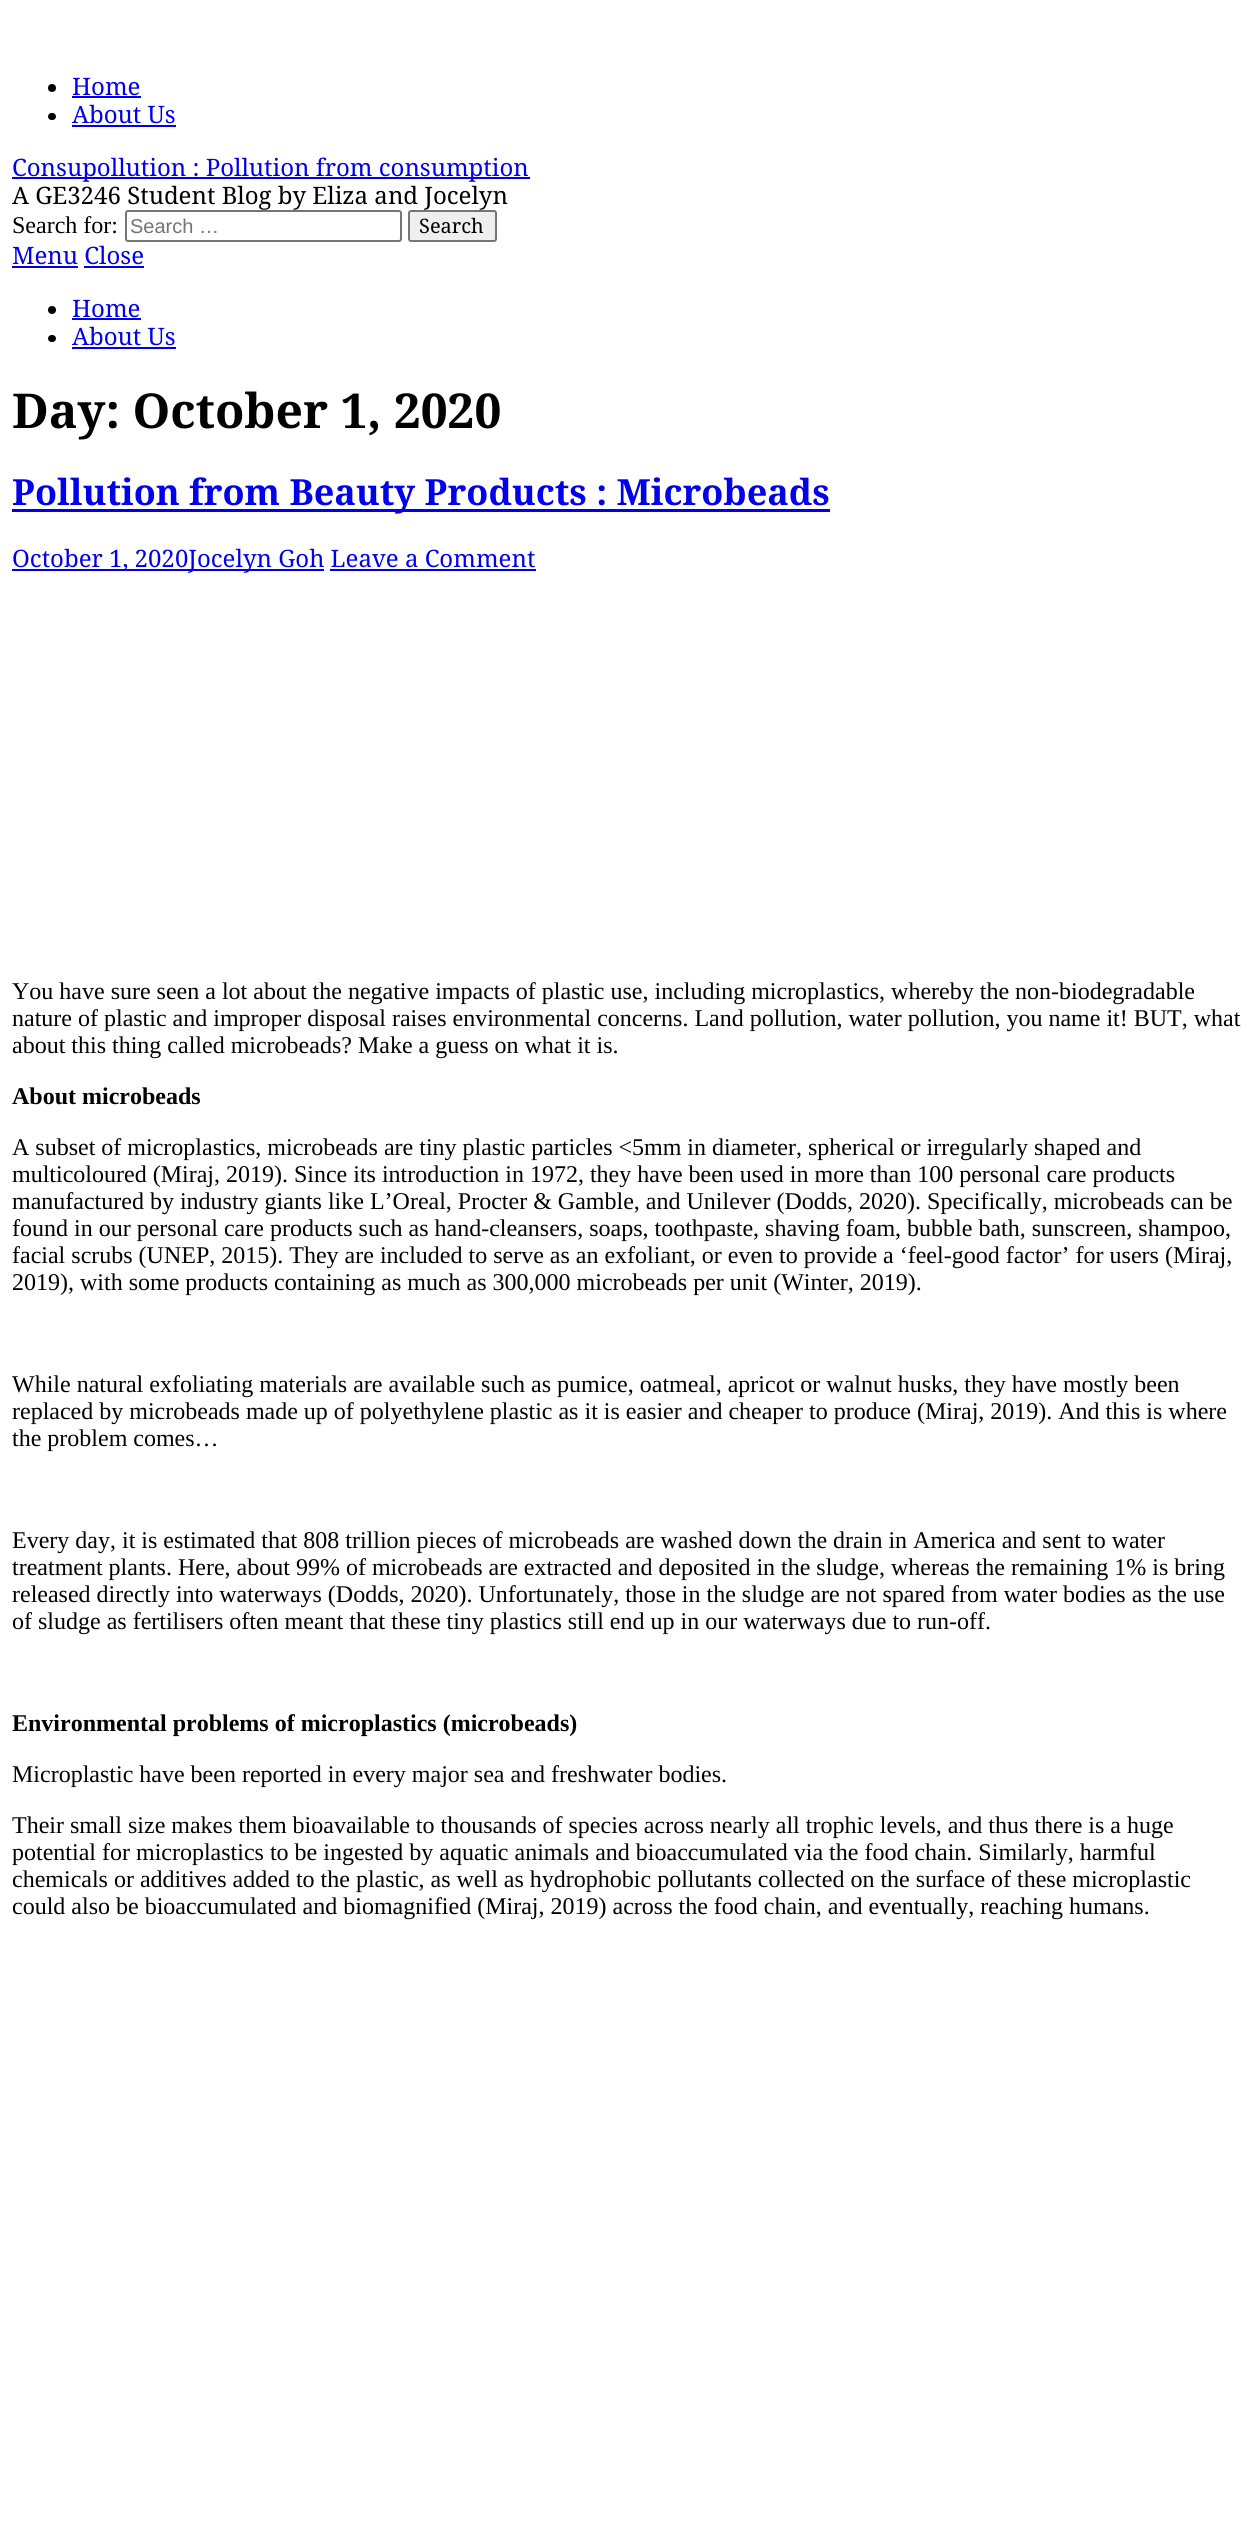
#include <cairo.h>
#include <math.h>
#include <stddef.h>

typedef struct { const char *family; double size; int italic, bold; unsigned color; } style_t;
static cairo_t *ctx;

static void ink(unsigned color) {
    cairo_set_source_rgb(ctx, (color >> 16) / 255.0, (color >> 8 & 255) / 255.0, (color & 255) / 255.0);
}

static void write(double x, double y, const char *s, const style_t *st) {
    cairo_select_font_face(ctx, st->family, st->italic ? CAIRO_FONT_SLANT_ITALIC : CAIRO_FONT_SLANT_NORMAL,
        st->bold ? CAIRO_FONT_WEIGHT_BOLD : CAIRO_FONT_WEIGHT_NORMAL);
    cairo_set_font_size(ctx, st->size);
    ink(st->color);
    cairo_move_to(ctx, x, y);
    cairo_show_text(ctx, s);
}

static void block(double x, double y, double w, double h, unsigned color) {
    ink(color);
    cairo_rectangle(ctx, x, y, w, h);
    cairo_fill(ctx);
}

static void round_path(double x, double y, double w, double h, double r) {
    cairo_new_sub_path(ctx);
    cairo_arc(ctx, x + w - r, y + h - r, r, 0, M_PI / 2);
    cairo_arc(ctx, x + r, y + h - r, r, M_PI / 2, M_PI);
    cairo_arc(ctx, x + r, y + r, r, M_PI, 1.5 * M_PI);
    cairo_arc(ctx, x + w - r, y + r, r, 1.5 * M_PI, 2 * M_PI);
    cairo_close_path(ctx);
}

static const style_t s1 = {"Droid Serif", 24, 0, 0, 0x0000ee};
static const style_t s2 = {"Droid Serif", 24, 0, 0, 0x000000};
static const style_t s3 = {"Liberation Serif", 24, 0, 0, 0x000000};
static const style_t s4 = {"Liberation Sans", 20, 0, 0, 0x757575};
static const style_t s5 = {"Droid Serif", 20, 0, 0, 0x000000};
static const style_t s6 = {"Droid Serif", 48, 0, 1, 0x000000};
static const style_t s7 = {"Droid Serif", 36, 0, 1, 0x0000ee};
static const style_t s8 = {"Liberation Serif", 24, 0, 1, 0x000000};

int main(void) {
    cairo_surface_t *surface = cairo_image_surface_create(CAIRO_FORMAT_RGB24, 1259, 2530);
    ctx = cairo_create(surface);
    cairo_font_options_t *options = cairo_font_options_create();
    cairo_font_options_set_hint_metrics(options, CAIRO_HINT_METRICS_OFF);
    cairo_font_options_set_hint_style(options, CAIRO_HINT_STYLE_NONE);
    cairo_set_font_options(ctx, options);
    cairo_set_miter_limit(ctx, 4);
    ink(0xffffff);
    cairo_paint(ctx);
    ink(0x000000);
    cairo_arc(ctx, 52, 88, 4, 0, 2 * M_PI);
    cairo_fill(ctx);
    write(72, 95, "Home", &s1);
    block(72, 96, 69, 2, 0x0000ee);
    ink(0x000000);
    round_path(48, 113, 8, 7, 3.5);
    cairo_fill(ctx);
    write(72, 123, "About Us", &s1);
    block(72, 125, 104, 2, 0x0000ee);
    block(12, 177, 518, 2, 0x0000ee);
    write(12, 176, "Consupollution : Pollution from consumption", &s1);
    write(12, 204, "A GE3246 Student Blog by Eliza and Jocelyn", &s2);
    write(12, 233, "Search for:", &s3);
    round_path(126, 211, 275, 30, 2);
    ink(0x767676);
    cairo_stroke(ctx);
    write(130, 233, "Search …", &s4);
    ink(0xefefef);
    round_path(409, 211, 87, 30, 2);
    cairo_fill_preserve(ctx);
    ink(0x767676);
    cairo_stroke(ctx);
    write(419, 233, "Search", &s5);
    write(12, 264, "Menu Close", &s1);
    block(12, 266, 66, 2, 0x0000ee);
    block(84, 266, 60, 2, 0x0000ee);
    ink(0x000000);
    cairo_new_path(ctx);
    cairo_arc(ctx, 52, 310, 4, 0, 2 * M_PI);
    cairo_fill(ctx);
    write(72, 317, "Home", &s1);
    block(72, 318, 69, 2, 0x0000ee);
    ink(0x000000);
    round_path(48, 335, 8, 7, 3.5);
    cairo_fill(ctx);
    write(72, 345, "About Us", &s1);
    block(72, 347, 104, 2, 0x0000ee);
    write(12, 428, "Day: October 1, 2020", &s6);
    block(12, 509, 818, 3, 0x0000ee);
    write(12, 505, "Pollution from Beauty Products : Microbeads", &s7);
    block(12, 569, 312, 2, 0x0000ee);
    write(12, 567, "October 1, 2020Jocelyn Goh Leave a Comment", &s1);
    block(330, 569, 206, 2, 0x0000ee);
    write(12, 999, "You have sure seen a lot about the negative impacts of plastic use, including microplastics, whereby the non-biodegradable", &s3);
    write(12, 1026, "nature of plastic and improper disposal raises environmental concerns. Land pollution, water pollution, you name it! BUT, what", &s3);
    write(12, 1053, "about this thing called microbeads? Make a guess on what it is.", &s3);
    write(12, 1104, "About microbeads", &s8);
    write(12, 1155, "A subset of microplastics, microbeads are tiny plastic particles <5mm in diameter, spherical or irregularly shaped and", &s3);
    write(12, 1182, "multicoloured (Miraj, 2019). Since its introduction in 1972, they have been used in more than 100 personal care products", &s3);
    write(12, 1209, "manufactured by industry giants like L’Oreal, Procter & Gamble, and Unilever (Dodds, 2020). Specifically, microbeads can be", &s3);
    write(12, 1236, "found in our personal care products such as hand-cleansers, soaps, toothpaste, shaving foam, bubble bath, sunscreen, shampoo,", &s3);
    write(12, 1263, "facial scrubs (UNEP, 2015). They are included to serve as an exfoliant, or even to provide a ‘feel-good factor’ for users (Miraj,", &s3);
    write(12, 1290, "2019), with some products containing as much as 300,000 microbeads per unit (Winter, 2019).", &s3);
    write(12, 1392, "While natural exfoliating materials are available such as pumice, oatmeal, apricot or walnut husks, they have mostly been", &s3);
    write(12, 1419, "replaced by microbeads made up of polyethylene plastic as it is easier and cheaper to produce (Miraj, 2019). And this is where", &s3);
    write(12, 1446, "the problem comes…", &s3);
    write(12, 1548, "Every day, it is estimated that 808 trillion pieces of microbeads are washed down the drain in America and sent to water", &s3);
    write(12, 1575, "treatment plants. Here, about 99% of microbeads are extracted and deposited in the sludge, whereas the remaining 1% is bring", &s3);
    write(12, 1602, "released directly into waterways (Dodds, 2020). Unfortunately, those in the sludge are not spared from water bodies as the use", &s3);
    write(12, 1629, "of sludge as fertilisers often meant that these tiny plastics still end up in our waterways due to run-off.", &s3);
    write(12, 1731, "Environmental problems of microplastics (microbeads)", &s8);
    write(12, 1782, "Microplastic have been reported in every major sea and freshwater bodies.", &s3);
    write(12, 1833, "Their small size makes them bioavailable to thousands of species across nearly all trophic levels, and thus there is a huge", &s3);
    write(12, 1860, "potential for microplastics to be ingested by aquatic animals and bioaccumulated via the food chain. Similarly, harmful", &s3);
    write(12, 1887, "chemicals or additives added to the plastic, as well as hydrophobic pollutants collected on the surface of these microplastic", &s3);
    write(12, 1914, "could also be bioaccumulated and biomagnified (Miraj, 2019) across the food chain, and eventually, reaching humans.", &s3);
    cairo_surface_write_to_png(surface, "screenshot.png");
    cairo_font_options_destroy(options);
    cairo_destroy(ctx);
    cairo_surface_destroy(surface);
    return 0;
}
